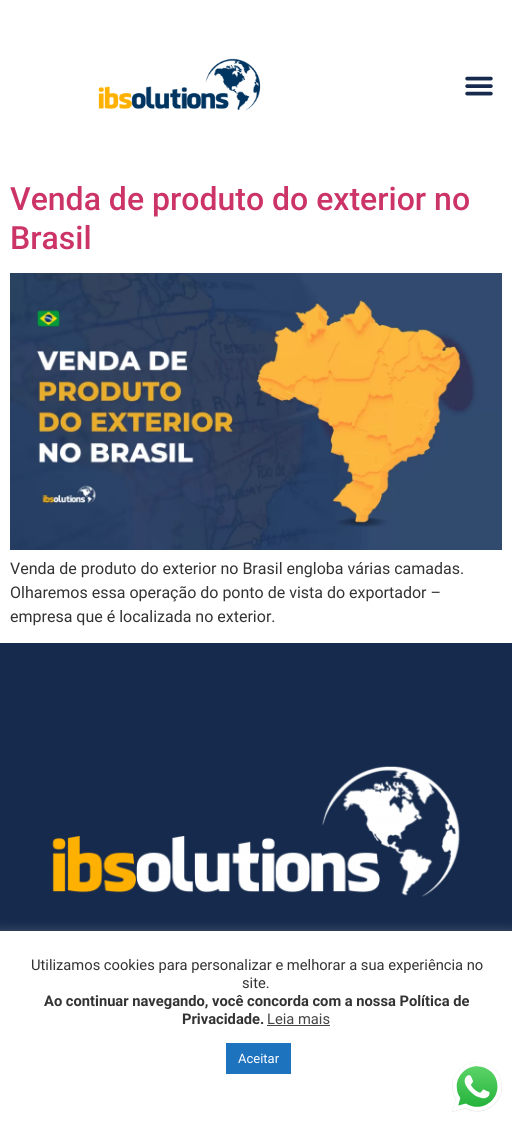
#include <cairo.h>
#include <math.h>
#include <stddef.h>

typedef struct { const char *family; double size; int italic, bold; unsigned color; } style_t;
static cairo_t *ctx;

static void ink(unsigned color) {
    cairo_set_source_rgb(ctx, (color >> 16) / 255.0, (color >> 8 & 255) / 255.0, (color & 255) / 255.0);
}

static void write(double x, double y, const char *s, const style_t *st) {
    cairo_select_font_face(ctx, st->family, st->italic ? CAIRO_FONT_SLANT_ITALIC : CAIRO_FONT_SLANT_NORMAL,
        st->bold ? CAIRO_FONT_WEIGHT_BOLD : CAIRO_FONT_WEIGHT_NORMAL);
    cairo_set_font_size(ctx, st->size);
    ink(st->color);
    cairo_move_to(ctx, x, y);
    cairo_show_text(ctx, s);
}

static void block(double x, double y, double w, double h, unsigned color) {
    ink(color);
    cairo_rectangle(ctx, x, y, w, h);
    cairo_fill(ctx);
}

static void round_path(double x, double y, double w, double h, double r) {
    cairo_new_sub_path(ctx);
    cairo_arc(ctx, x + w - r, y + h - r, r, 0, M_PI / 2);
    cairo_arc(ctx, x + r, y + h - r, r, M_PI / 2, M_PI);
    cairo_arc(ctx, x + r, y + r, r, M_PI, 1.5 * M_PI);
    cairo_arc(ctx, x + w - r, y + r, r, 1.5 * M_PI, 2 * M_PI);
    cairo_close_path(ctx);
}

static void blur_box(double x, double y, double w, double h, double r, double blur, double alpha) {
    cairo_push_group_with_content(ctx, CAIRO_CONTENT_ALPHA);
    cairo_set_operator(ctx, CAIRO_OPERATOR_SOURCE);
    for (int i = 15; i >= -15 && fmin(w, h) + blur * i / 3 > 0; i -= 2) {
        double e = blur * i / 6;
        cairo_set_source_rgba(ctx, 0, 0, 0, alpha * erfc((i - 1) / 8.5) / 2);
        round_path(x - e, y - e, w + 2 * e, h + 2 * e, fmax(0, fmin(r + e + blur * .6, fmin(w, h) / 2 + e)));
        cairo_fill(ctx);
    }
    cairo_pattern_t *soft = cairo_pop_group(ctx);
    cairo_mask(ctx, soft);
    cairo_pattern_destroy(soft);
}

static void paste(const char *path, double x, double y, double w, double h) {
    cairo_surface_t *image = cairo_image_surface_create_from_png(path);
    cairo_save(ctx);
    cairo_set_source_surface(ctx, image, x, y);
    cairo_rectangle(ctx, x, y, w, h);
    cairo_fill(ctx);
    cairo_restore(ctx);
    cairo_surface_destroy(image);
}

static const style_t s1 = {"Roboto Medium", 32, 0, 0, 0xcc3366};
static const style_t s2 = {"Roboto", 16, 0, 0, 0x333333};
static const style_t s3 = {"Roboto", 14.7, 0, 0, 0x333333};
static const style_t s4 = {"Roboto", 14.7, 0, 1, 0x333333};
static const style_t s5 = {"Roboto", 14.7, 0, 0, 0x444444};
static const style_t s6 = {"Roboto", 13, 0, 0, 0xffffff};

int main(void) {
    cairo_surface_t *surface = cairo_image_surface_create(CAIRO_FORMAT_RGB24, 512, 1122);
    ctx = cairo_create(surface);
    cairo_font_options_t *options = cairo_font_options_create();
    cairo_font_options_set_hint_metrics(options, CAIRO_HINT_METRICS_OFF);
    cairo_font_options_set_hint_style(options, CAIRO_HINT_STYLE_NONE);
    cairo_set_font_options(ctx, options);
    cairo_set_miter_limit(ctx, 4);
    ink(0xffffff);
    cairo_paint(ctx);
    paste("pic1.png", 98, 58, 163, 53);
    paste("pic2.png", 465, 76, 28, 20);
    write(10, 210, "Venda de produto do exterior no", &s1);
    write(10, 249, "Brasil", &s1);
    paste("pic3.png", 10, 273, 492, 277);
    write(10, 574, "Venda de produto do exterior no Brasil engloba várias camadas.", &s2);
    write(10, 598, "Olharemos essa operação do ponto de vista do exportador –", &s2);
    write(10, 622, "empresa que é localizada no exterior.", &s2);
    block(0, 643, 512, 288, 0x152a4d);
    paste("pic4.png", 52, 766, 408, 131);
    ink(0xacabab);
    blur_box(0, 930, 512, 191, 0, 5, 0.3);
    block(0, 931, 512, 191, 0xffffff);
    write(31, 970, "Utilizamos cookies para personalizar e melhorar a sua experiência no", &s3);
    write(242, 988, "site.", &s3);
    write(44, 1006, "Ao continuar navegando, você concorda com a nossa Política de", &s4);
    write(182, 1024, "Privacidade.", &s4);
    write(267, 1024, "Leia mais", &s5);
    block(267, 1025, 63, 1, 0x444444);
    block(226, 1043, 65, 31, 0x1e73be);
    write(238, 1063, "Aceitar", &s6);
    paste("pic5.png", 452, 1062, 50, 50);
    cairo_surface_write_to_png(surface, "screenshot.png");
    cairo_font_options_destroy(options);
    cairo_destroy(ctx);
    cairo_surface_destroy(surface);
    return 0;
}
